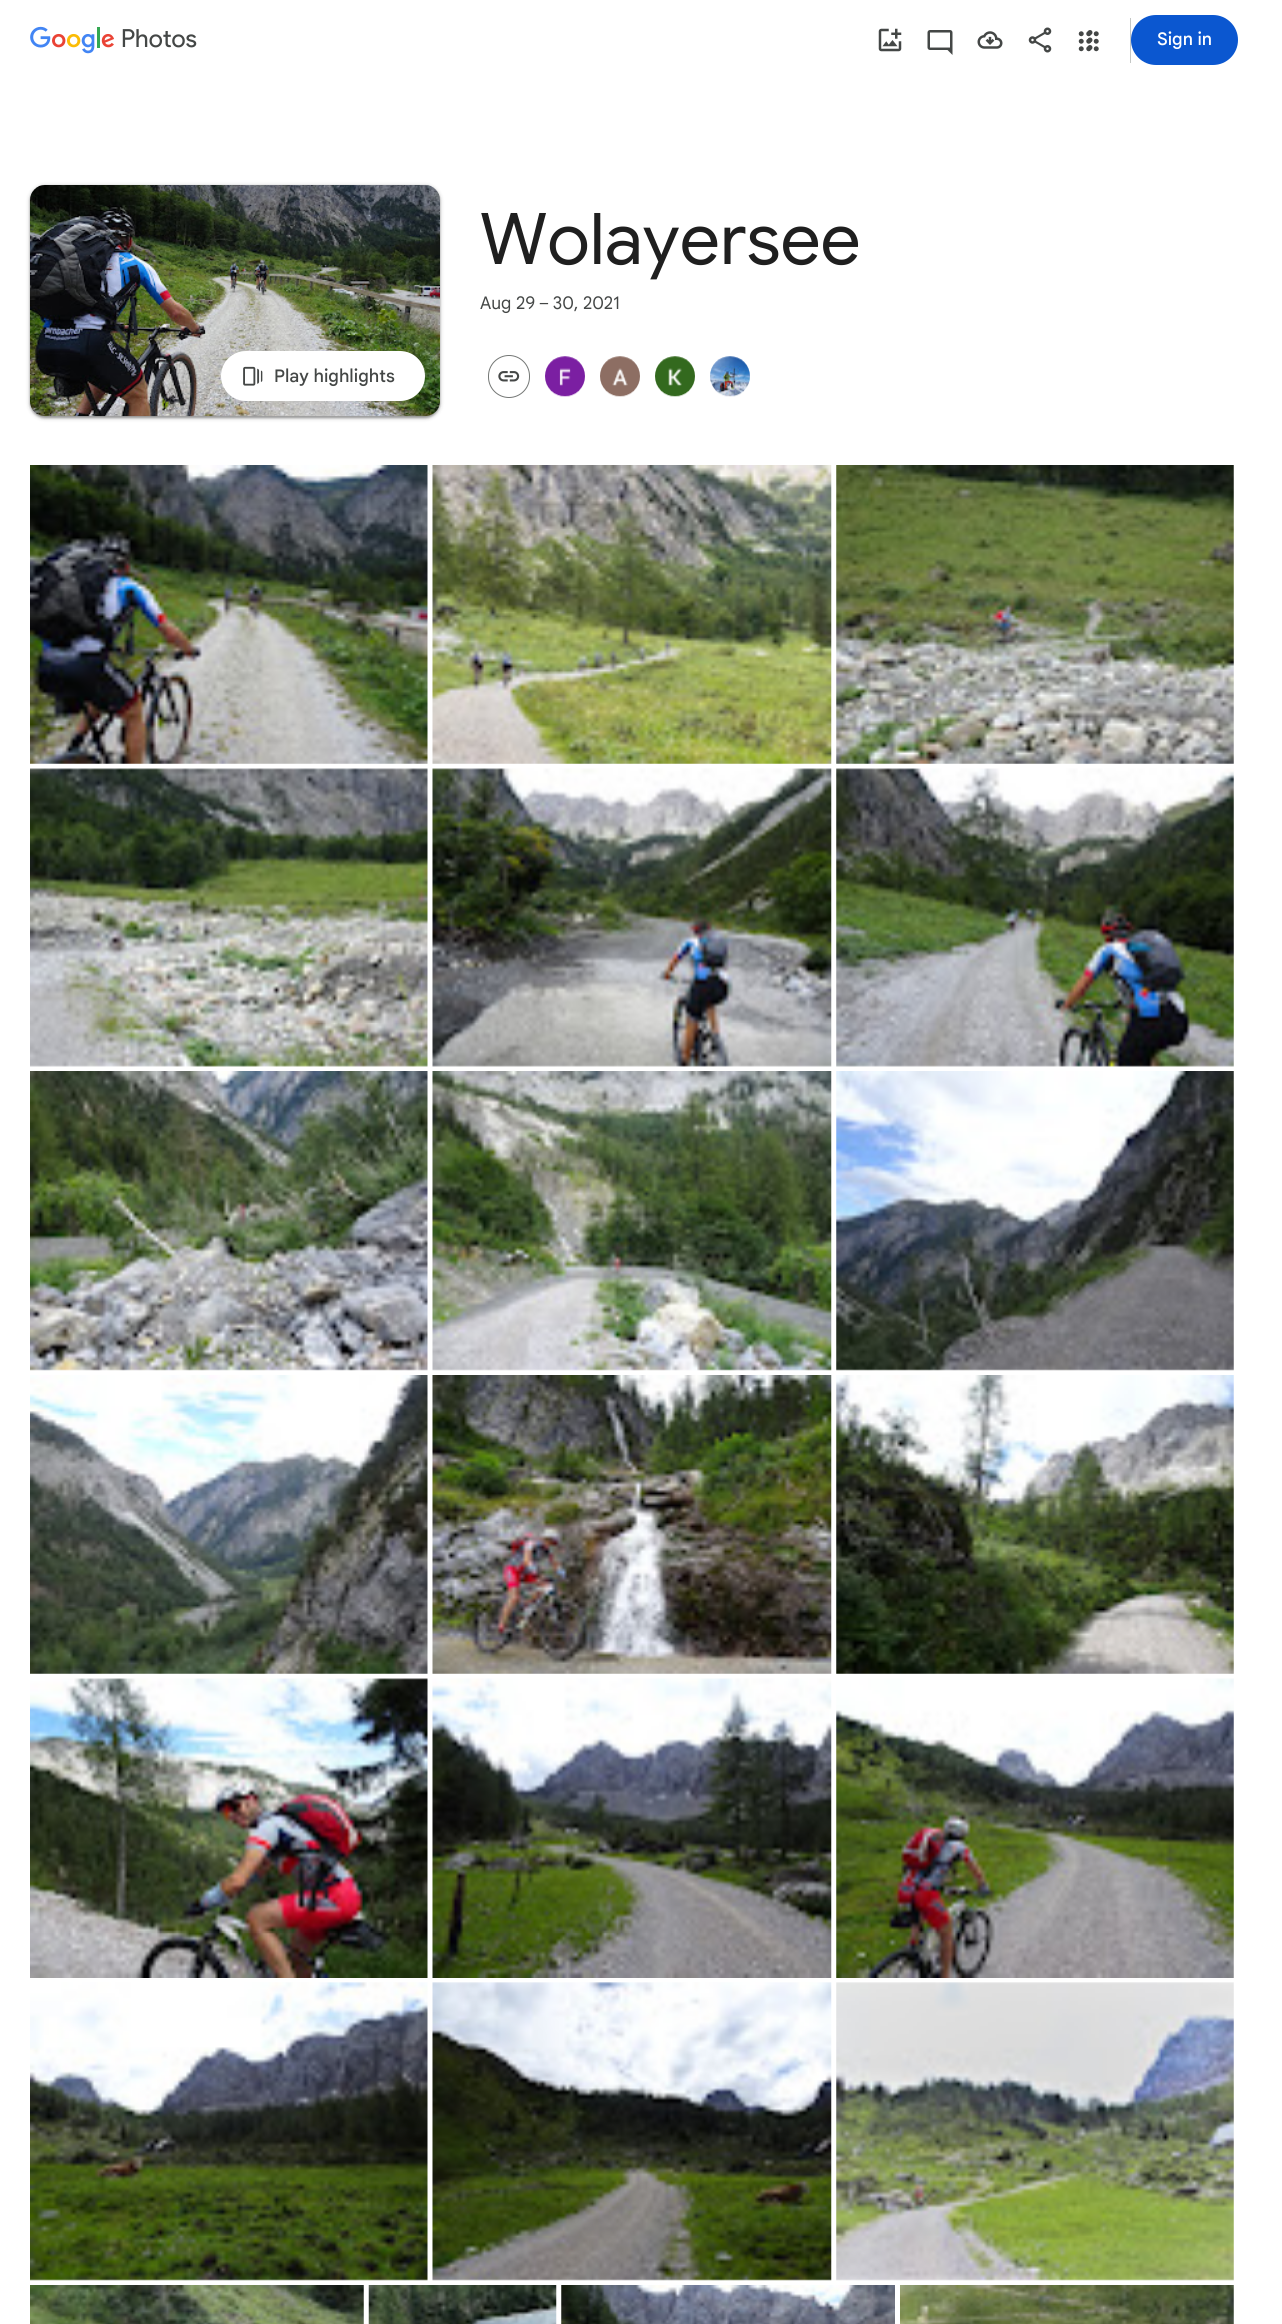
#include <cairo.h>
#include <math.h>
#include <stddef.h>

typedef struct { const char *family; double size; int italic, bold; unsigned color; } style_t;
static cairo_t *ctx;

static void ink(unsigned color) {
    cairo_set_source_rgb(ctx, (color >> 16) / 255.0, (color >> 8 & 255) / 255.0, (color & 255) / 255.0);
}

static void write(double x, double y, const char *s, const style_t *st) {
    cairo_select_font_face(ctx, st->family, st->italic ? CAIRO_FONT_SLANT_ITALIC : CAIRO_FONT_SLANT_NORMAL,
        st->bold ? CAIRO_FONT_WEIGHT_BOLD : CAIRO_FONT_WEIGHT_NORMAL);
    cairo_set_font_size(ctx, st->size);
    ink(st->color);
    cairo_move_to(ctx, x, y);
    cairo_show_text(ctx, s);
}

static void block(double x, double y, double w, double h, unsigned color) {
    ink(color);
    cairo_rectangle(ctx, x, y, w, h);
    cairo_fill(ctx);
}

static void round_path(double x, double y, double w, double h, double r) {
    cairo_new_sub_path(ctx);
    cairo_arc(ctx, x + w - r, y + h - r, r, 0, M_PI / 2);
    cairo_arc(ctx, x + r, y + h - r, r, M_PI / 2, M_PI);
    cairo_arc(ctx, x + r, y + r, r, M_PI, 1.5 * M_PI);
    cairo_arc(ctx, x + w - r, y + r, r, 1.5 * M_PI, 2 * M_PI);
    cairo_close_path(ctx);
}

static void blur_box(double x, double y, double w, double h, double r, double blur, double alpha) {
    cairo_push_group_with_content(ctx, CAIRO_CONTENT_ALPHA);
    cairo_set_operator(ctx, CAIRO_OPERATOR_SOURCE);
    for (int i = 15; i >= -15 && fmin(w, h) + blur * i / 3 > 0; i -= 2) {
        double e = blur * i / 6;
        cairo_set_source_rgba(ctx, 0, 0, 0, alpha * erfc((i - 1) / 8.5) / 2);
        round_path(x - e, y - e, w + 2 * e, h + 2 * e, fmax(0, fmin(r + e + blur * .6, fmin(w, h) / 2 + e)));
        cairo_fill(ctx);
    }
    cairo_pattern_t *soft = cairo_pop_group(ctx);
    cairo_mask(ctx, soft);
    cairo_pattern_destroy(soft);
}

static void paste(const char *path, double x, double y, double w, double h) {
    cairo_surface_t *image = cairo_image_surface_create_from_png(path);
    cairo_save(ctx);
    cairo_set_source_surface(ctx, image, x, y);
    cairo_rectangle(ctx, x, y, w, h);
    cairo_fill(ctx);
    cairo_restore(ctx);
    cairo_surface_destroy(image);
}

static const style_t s1 = {"Product Sans", 25, 0, 0, 0x444746};
static const style_t s2 = {"Google Sans", 71.25, 0, 0, 0x1f1f1f};
static const style_t s3 = {"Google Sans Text", 17.5, 0, 0, 0x444746};
static const style_t s4 = {"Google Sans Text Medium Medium", 17.5, 0, 0, 0x444746};
static const style_t s5 = {"Google Sans Text Medium Medium", 17.5, 0, 0, 0xffffff};

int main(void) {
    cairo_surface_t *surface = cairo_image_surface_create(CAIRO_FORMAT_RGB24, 1282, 2324);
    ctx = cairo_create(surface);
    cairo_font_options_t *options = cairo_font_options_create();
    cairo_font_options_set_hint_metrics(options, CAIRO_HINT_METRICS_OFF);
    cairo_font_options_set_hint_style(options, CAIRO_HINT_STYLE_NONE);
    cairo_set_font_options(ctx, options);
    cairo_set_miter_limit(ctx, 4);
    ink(0xffffff);
    cairo_paint(ctx);
    paste("pic1.png", 30, 26, 84, 28);
    write(121, 47, "Photos", &s1);
    paste("pic2.png", 878, 28, 24, 24);
    paste("pic3.png", 927, 30, 26, 25);
    paste("pic4.png", 977, 31, 26, 18);
    paste("pic5.png", 1028, 27, 24, 26);
    paste("pic6.png", 1087, 30, 6, 20);
    block(1130, 18, 1, 45, 0xc4c7c5);
    write(480, 264, "Wolayersee", &s2);
    write(480, 309, "Aug 29 – 30, 2021", &s3);
    round_path(488.5, 355.5, 41, 42, 20.5);
    ink(0x747775);
    cairo_set_line_width(ctx, 1);
    cairo_stroke(ctx);
    paste("pic7.png", 498, 371, 22, 11);
    paste("pic8.png", 545, 356, 40, 41);
    paste("pic9.png", 600, 356, 40, 41);
    paste("pic10.png", 655, 356, 40, 41);
    paste("pic11.png", 710, 356, 40, 41);
    ink(0x000000);
    blur_box(29, 185, 412, 234, 16, 2, 0.15);
    blur_box(30, 186, 410, 232, 15, 1, 0.3);
    paste("pic12.png", 30, 185, 410, 232);
    ink(0xffffff);
    round_path(221, 351, 204, 50, 25);
    cairo_fill(ctx);
    paste("pic13.png", 243, 366, 20, 20);
    write(274, 382, "Play highlights", &s4);
    paste("pic14.png", 30, 465, 398, 299);
    paste("pic15.png", 432, 465, 400, 299);
    paste("pic16.png", 836, 465, 398, 299);
    paste("pic17.png", 30, 768, 398, 299);
    paste("pic18.png", 432, 768, 400, 299);
    paste("pic19.png", 836, 768, 398, 299);
    paste("pic20.png", 30, 1071, 398, 300);
    paste("pic21.png", 432, 1071, 400, 300);
    paste("pic22.png", 836, 1071, 398, 300);
    paste("pic23.png", 30, 1375, 398, 299);
    paste("pic24.png", 432, 1375, 400, 299);
    paste("pic25.png", 836, 1375, 398, 299);
    paste("pic26.png", 30, 1678, 398, 300);
    paste("pic27.png", 432, 1678, 400, 300);
    paste("pic28.png", 836, 1678, 398, 300);
    paste("pic29.png", 30, 1982, 398, 299);
    paste("pic30.png", 432, 1982, 400, 299);
    paste("pic31.png", 836, 1982, 398, 299);
    paste("pic32.png", 30, 2285, 334, 39);
    paste("pic33.png", 368, 2285, 189, 39);
    paste("pic34.png", 561, 2285, 334, 39);
    paste("pic35.png", 900, 2285, 334, 39);
    paste("pic36.png", 1078, 31, 21, 21);
    ink(0x0b57d0);
    round_path(1131, 15, 107, 50, 25);
    cairo_fill(ctx);
    write(1157, 45, "Sign in", &s5);
    cairo_surface_write_to_png(surface, "screenshot.png");
    cairo_font_options_destroy(options);
    cairo_destroy(ctx);
    cairo_surface_destroy(surface);
    return 0;
}
